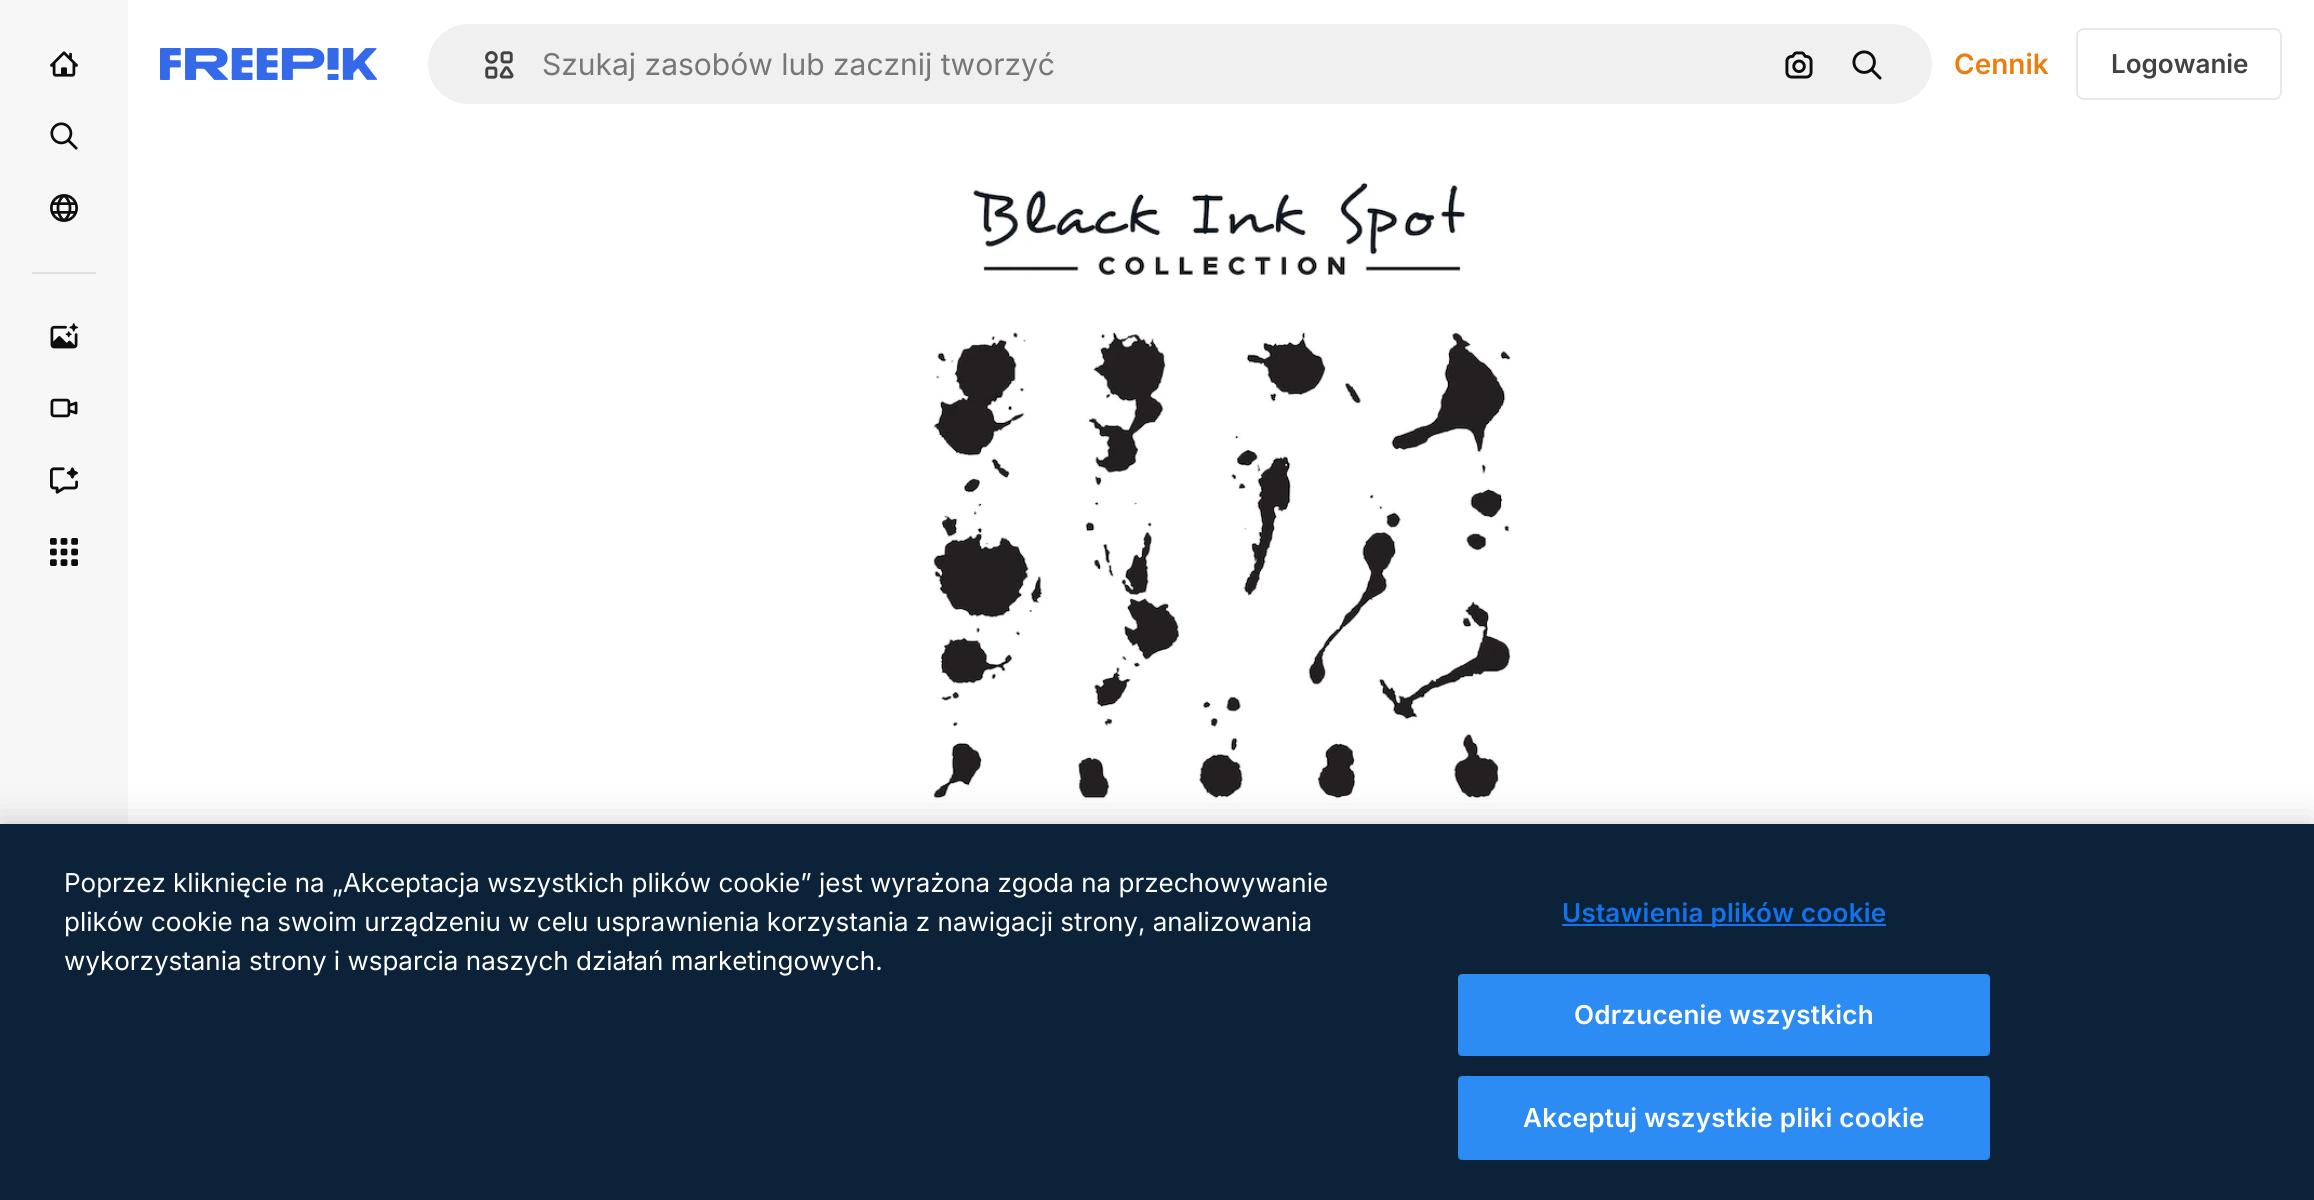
#include <cairo.h>
#include <math.h>
#include <stddef.h>

typedef struct { const char *family; double size; int italic, bold; unsigned color; } style_t;
static cairo_t *ctx;

static void ink(unsigned color) {
    cairo_set_source_rgb(ctx, (color >> 16) / 255.0, (color >> 8 & 255) / 255.0, (color & 255) / 255.0);
}

static void write(double x, double y, const char *s, const style_t *st) {
    cairo_select_font_face(ctx, st->family, st->italic ? CAIRO_FONT_SLANT_ITALIC : CAIRO_FONT_SLANT_NORMAL,
        st->bold ? CAIRO_FONT_WEIGHT_BOLD : CAIRO_FONT_WEIGHT_NORMAL);
    cairo_set_font_size(ctx, st->size);
    ink(st->color);
    cairo_move_to(ctx, x, y);
    cairo_show_text(ctx, s);
}

static void write_spaced(double x, double y, const char *s, double letter, double word) {
    cairo_move_to(ctx, x, y);
    while (*s) {
        char ch[5] = {0};
        int n = 0;
        do ch[n++] = *s++; while ((*s & 0xC0) == 0x80);
        cairo_show_text(ctx, ch);
        cairo_rel_move_to(ctx, letter + word * (*ch == ' '), 0);
    }
}

static void block(double x, double y, double w, double h, unsigned color) {
    ink(color);
    cairo_rectangle(ctx, x, y, w, h);
    cairo_fill(ctx);
}

static void round_path(double x, double y, double w, double h, double r) {
    cairo_new_sub_path(ctx);
    cairo_arc(ctx, x + w - r, y + h - r, r, 0, M_PI / 2);
    cairo_arc(ctx, x + r, y + h - r, r, M_PI / 2, M_PI);
    cairo_arc(ctx, x + r, y + r, r, M_PI, 1.5 * M_PI);
    cairo_arc(ctx, x + w - r, y + r, r, 1.5 * M_PI, 2 * M_PI);
    cairo_close_path(ctx);
}

static void blur_box(double x, double y, double w, double h, double r, double blur, double alpha) {
    cairo_push_group_with_content(ctx, CAIRO_CONTENT_ALPHA);
    cairo_set_operator(ctx, CAIRO_OPERATOR_SOURCE);
    for (int i = 15; i >= -15 && fmin(w, h) + blur * i / 3 > 0; i -= 2) {
        double e = blur * i / 6;
        cairo_set_source_rgba(ctx, 0, 0, 0, alpha * erfc((i - 1) / 8.5) / 2);
        round_path(x - e, y - e, w + 2 * e, h + 2 * e, fmax(0, fmin(r + e + blur * .6, fmin(w, h) / 2 + e)));
        cairo_fill(ctx);
    }
    cairo_pattern_t *soft = cairo_pop_group(ctx);
    cairo_mask(ctx, soft);
    cairo_pattern_destroy(soft);
}

static void paste(const char *path, double x, double y, double w, double h) {
    cairo_surface_t *image = cairo_image_surface_create_from_png(path);
    cairo_save(ctx);
    cairo_set_source_surface(ctx, image, x, y);
    cairo_rectangle(ctx, x, y, w, h);
    cairo_fill(ctx);
    cairo_restore(ctx);
    cairo_surface_destroy(image);
}

static const style_t s1 = {"Inter", 30, 0, 0, 0x777777};
static const style_t s2 = {"Inter SemiBold", 28, 0, 0, 0xea7e11};
static const style_t s3 = {"Inter SemiBold", 26, 0, 0, 0x424242};
static const style_t s4 = {"Inter", 26, 0, 0, 0xffffff};

int main(void) {
    cairo_surface_t *surface = cairo_image_surface_create(CAIRO_FORMAT_RGB24, 2314, 1200);
    ctx = cairo_create(surface);
    cairo_font_options_t *options = cairo_font_options_create();
    cairo_font_options_set_hint_metrics(options, CAIRO_HINT_METRICS_OFF);
    cairo_font_options_set_hint_style(options, CAIRO_HINT_STYLE_NONE);
    cairo_set_font_options(ctx, options);
    cairo_set_miter_limit(ctx, 4);
    ink(0xffffff);
    cairo_paint(ctx);
    block(0, 0, 128, 824, 0xf7f7f7);
    paste("pic1.png", 50, 51, 28, 26);
    paste("pic2.png", 50, 122, 28, 28);
    paste("pic3.png", 50, 194, 28, 28);
    block(32, 272, 64, 2, 0xe0e0e0);
    paste("pic4.png", 50, 323, 28, 26);
    paste("pic5.png", 50, 398, 28, 20);
    paste("pic6.png", 50, 467, 28, 27);
    paste("pic7.png", 50, 538, 28, 28);
    paste("pic8.png", 160, 48, 218, 32);
    ink(0xf0f0f0);
    round_path(427, 23, 1506, 82, 41);
    cairo_fill_preserve(ctx);
    ink(0xffffff);
    cairo_stroke(ctx);
    paste("pic9.png", 485, 51, 29, 28);
    write(542, 75, "Szukaj zasobów lub zacznij tworzyć", &s1);
    paste("pic10.png", 1785, 51, 28, 28);
    paste("pic11.png", 1852, 50, 30, 30);
    write(1954, 74, "Cennik", &s2);
    round_path(2077, 29, 204, 70, 7);
    ink(0xe7e7e7);
    cairo_stroke(ctx);
    write(2111, 73, "Logowanie", &s3);
    paste("pic12.png", 933, 182, 578, 642);
    ink(0x000000);
    blur_box(0, 824, 2314, 376, 0, 18, 0.2);
    block(0, 824, 2314, 376, 0x0b2239);
    write(64, 892, "Poprzez kliknięcie na „Akceptacja wszystkich plików cookie” jest wyrażona zgoda na przechowywanie", &s4);
    write(64, 931, "plików cookie na swoim urządzeniu w celu usprawnienia korzystania z nawigacji strony, analizowania", &s4);
    write(64, 970, "wykorzystania strony i wsparcia naszych działań marketingowych.", &s4);
    block(1562, 924, 324, 2, 0x1273eb);
    cairo_select_font_face(ctx, "Inter SemiBold", CAIRO_FONT_SLANT_NORMAL, CAIRO_FONT_WEIGHT_NORMAL);
    write_spaced(1562, 922, "Ustawienia plików cookie", 0.25, 0);
    ink(0x2c8cf4);
    round_path(1459, 975, 530, 80, 3);
    cairo_fill_preserve(ctx);
    cairo_stroke(ctx);
    ink(0xffffff);
    write_spaced(1574, 1024, "Odrzucenie wszystkich", 0.25, 0);
    ink(0x2c8cf4);
    round_path(1459, 1077, 530, 82, 3);
    cairo_fill_preserve(ctx);
    cairo_stroke(ctx);
    ink(0xffffff);
    write_spaced(1523, 1127, "Akceptuj wszystkie pliki cookie", 0.25, 0);
    cairo_surface_write_to_png(surface, "screenshot.png");
    cairo_font_options_destroy(options);
    cairo_destroy(ctx);
    cairo_surface_destroy(surface);
    return 0;
}
